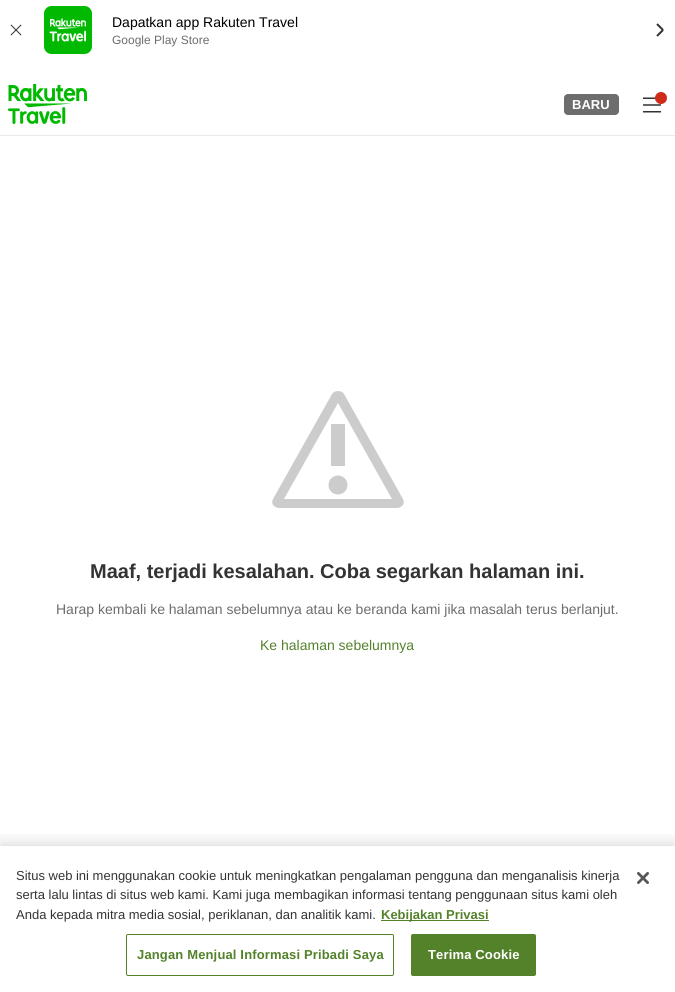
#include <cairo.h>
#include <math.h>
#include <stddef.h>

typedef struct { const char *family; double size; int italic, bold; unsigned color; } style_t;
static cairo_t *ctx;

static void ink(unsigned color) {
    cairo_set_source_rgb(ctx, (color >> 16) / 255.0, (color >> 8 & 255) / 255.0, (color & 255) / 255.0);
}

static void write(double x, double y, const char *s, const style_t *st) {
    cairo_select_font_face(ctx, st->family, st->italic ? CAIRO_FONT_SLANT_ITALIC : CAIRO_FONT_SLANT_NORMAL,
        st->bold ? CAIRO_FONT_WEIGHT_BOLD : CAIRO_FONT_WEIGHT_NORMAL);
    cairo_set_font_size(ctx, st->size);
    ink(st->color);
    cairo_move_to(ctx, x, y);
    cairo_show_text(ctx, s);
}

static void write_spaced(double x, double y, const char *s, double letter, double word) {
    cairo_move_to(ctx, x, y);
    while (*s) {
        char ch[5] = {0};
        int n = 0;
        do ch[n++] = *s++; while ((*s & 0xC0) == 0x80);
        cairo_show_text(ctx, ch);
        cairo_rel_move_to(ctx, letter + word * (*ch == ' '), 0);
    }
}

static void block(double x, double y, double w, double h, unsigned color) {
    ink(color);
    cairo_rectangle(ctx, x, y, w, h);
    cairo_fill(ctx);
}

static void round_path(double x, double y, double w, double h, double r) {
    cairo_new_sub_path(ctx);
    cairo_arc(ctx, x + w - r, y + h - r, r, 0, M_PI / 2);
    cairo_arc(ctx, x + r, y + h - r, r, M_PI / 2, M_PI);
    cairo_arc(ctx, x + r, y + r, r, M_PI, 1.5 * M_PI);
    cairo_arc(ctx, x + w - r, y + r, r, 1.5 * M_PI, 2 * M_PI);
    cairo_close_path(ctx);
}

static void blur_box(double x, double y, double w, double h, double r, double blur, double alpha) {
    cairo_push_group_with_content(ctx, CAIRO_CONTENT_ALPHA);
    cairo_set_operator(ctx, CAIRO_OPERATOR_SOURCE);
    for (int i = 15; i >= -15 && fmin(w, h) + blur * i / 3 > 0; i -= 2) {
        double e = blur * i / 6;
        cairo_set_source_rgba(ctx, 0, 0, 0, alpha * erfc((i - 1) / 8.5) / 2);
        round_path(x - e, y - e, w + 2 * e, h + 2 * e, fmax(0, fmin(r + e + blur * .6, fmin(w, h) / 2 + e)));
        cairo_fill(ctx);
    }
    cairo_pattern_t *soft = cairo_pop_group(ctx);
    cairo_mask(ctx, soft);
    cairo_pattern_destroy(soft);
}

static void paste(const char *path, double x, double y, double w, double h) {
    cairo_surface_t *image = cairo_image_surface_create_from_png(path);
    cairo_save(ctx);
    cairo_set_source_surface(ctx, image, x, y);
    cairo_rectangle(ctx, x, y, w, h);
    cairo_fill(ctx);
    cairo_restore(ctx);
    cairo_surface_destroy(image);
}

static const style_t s1 = {"Liberation Sans", 14, 0, 0, 0x000000};
static const style_t s2 = {"Liberation Sans", 12, 0, 0, 0x6d6d6d};
static const style_t s3 = {"Liberation Sans", 13, 0, 1, 0xffffff};
static const style_t s4 = {"Liberation Sans", 20, 0, 1, 0x333333};
static const style_t s5 = {"Liberation Sans", 14, 0, 0, 0x6d6d6d};
static const style_t s6 = {"Liberation Sans", 14, 0, 0, 0x54822b};
static const style_t s7 = {"Liberation Sans", 13, 0, 0, 0x333333};
static const style_t s8 = {"Liberation Sans", 13, 0, 1, 0x54822b};

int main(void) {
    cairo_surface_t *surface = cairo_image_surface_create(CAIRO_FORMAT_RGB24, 675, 992);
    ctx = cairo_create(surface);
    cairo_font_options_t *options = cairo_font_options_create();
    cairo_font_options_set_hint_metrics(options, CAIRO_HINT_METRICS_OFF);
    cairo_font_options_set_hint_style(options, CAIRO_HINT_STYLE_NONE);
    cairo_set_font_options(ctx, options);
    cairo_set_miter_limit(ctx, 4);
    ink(0xffffff);
    cairo_paint(ctx);
    paste("pic1.png", 10, 24, 12, 12);
    paste("pic2.png", 44, 6, 48, 48);
    write(112, 27, "Dapatkan app Rakuten Travel", &s1);
    write(112, 44, "Google Play Store", &s2);
    cairo_new_path(ctx);
    cairo_move_to(ctx, 657, 24);
    cairo_line_to(ctx, 662.5, 29.5);
    cairo_line_to(ctx, 662.5, 30.5);
    cairo_line_to(ctx, 657, 36);
    ink(0x333333);
    cairo_stroke(ctx);
    block(0, 135, 675, 1, 0xeaeaea);
    paste("pic3.png", 8, 84, 79, 40);
    ink(0x6d6d6d);
    round_path(564, 94, 55, 21, 4);
    cairo_fill(ctx);
    write(572, 109, "BARU", &s3);
    paste("pic4.png", 643, 97, 18, 16);
    ink(0xce2b18);
    cairo_arc(ctx, 661, 98, 6, 0, 2 * M_PI);
    cairo_fill(ctx);
    ink(0xcccccc);
    cairo_set_fill_rule(ctx, CAIRO_FILL_RULE_EVEN_ODD);
    cairo_new_path(ctx);
    cairo_move_to(ctx, 403, 499);
    cairo_line_to(ctx, 344, 394);
    cairo_curve_to(ctx, 343, 392, 340, 391, 338, 391);
    cairo_curve_to(ctx, 336, 391, 333, 392, 332, 394);
    cairo_line_to(ctx, 273, 499);
    cairo_curve_to(ctx, 272, 501, 272, 503, 273, 505);
    cairo_curve_to(ctx, 275, 507, 277, 508, 279, 508);
    cairo_line_to(ctx, 397, 508);
    cairo_curve_to(ctx, 399, 508, 401, 507, 403, 505);
    cairo_curve_to(ctx, 404, 503, 404, 501, 403, 499);
    cairo_close_path(ctx);
    cairo_move_to(ctx, 284, 499);
    cairo_line_to(ctx, 338, 403);
    cairo_line_to(ctx, 392, 499);
    cairo_close_path(ctx);
    cairo_fill(ctx);
    block(331, 424, 14, 42, 0xcccccc);
    cairo_arc(ctx, 338, 485, 9.5, 0, 2 * M_PI);
    cairo_fill(ctx);
    write(90, 578, "Maaf, terjadi kesalahan. Coba segarkan halaman ini.", &s4);
    write(56, 614, "Harap kembali ke halaman sebelumnya atau ke beranda kami jika masalah terus berlanjut.", &s5);
    write(260, 650, "Ke halaman sebelumnya", &s6);
    cairo_save(ctx);
    cairo_set_fill_rule(ctx, CAIRO_FILL_RULE_WINDING);
    cairo_rectangle(ctx, 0, 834, 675, 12);
    cairo_clip(ctx);
    ink(0x000000);
    blur_box(0, 846, 675, 146, 0, 9, 0.2);
    cairo_restore(ctx);
    write(16, 880, "Situs web ini menggunakan cookie untuk meningkatkan pengalaman pengguna dan menganalisis kinerja", &s7);
    write(16, 899, "serta lalu lintas di situs web kami. Kami juga membagikan informasi tentang penggunaan situs kami oleh", &s7);
    write(16, 919, "Anda kepada mitra media sosial, periklanan, dan analitik kami.", &s7);
    block(381, 920, 108, 1, 0x54822b);
    write(381, 919, "Kebijakan Privasi", &s8);
    round_path(126.5, 934.5, 267, 41, 1.5);
    cairo_set_line_width(ctx, 1);
    cairo_stroke(ctx);
    write_spaced(137, 959, "Jangan Menjual Informasi Pribadi Saya", 0.15, 0);
    round_path(411.5, 934.5, 124, 41, 1.5);
    cairo_fill_preserve(ctx);
    cairo_stroke(ctx);
    ink(0xffffff);
    write_spaced(428, 959, "Terima Cookie", 0.15, 0);
    paste("pic5.png", 637, 872, 12, 12);
    cairo_surface_write_to_png(surface, "screenshot.png");
    cairo_font_options_destroy(options);
    cairo_destroy(ctx);
    cairo_surface_destroy(surface);
    return 0;
}
